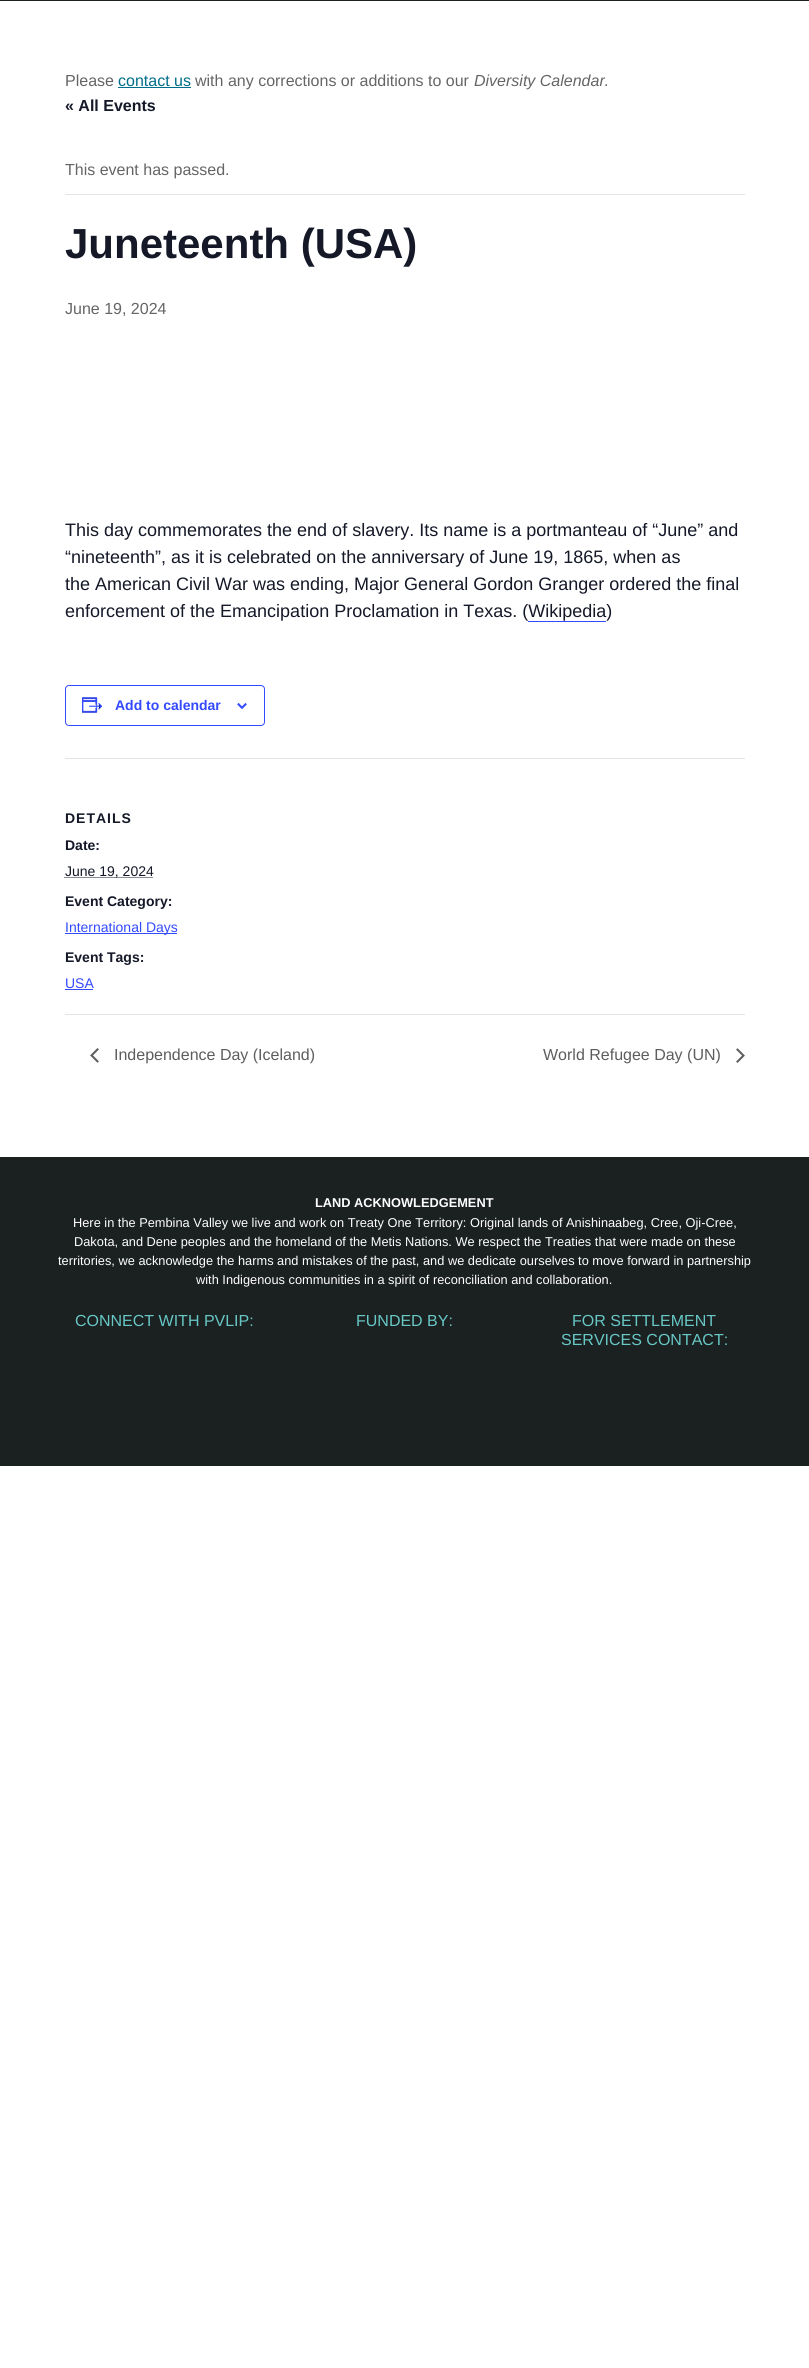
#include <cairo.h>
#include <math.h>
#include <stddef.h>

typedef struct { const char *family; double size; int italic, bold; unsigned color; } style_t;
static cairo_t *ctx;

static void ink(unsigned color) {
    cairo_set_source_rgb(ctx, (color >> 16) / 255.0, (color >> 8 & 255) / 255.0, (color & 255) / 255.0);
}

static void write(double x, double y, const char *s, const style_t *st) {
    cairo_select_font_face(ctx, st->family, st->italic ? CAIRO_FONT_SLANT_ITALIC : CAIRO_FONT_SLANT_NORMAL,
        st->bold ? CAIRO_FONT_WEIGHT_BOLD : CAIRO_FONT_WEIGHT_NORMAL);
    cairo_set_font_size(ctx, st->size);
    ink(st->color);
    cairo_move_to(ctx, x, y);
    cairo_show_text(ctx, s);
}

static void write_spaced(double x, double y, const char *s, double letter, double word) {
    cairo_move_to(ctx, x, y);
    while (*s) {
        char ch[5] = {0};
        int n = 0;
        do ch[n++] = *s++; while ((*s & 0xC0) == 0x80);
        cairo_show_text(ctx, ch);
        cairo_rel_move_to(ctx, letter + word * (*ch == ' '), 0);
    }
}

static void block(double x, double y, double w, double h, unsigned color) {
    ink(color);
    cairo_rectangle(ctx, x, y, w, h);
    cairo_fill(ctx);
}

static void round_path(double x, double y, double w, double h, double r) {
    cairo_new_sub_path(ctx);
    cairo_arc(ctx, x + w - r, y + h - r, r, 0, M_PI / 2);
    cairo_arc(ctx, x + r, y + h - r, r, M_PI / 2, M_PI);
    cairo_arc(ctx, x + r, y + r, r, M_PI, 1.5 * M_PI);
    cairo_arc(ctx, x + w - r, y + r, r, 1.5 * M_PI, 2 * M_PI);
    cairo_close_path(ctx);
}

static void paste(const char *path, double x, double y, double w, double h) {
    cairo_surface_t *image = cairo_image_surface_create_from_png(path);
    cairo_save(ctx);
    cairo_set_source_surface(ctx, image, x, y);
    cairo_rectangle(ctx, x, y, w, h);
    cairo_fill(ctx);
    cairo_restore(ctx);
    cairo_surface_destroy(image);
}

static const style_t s1 = {"Liberation Sans", 16, 0, 0, 0x656565};
static const style_t s2 = {"Liberation Sans", 16, 0, 0, 0x006d8a};
static const style_t s3 = {"Liberation Sans", 16, 1, 0, 0x656565};
static const style_t s4 = {"Liberation Sans", 16, 0, 1, 0x141827};
static const style_t s5 = {"Liberation Sans", 42, 0, 1, 0x141827};
static const style_t s6 = {"Liberation Sans", 18, 0, 0, 0x141827};
static const style_t s7 = {"Liberation Sans", 14, 0, 1, 0x334aff};
static const style_t s8 = {"Liberation Sans", 14, 0, 1, 0x141827};
static const style_t s9 = {"Liberation Sans", 14, 0, 0, 0x141827};
static const style_t s10 = {"Liberation Sans", 14, 0, 0, 0x334aff};
static const style_t s11 = {"Liberation Sans", 16, 0, 0, 0x5d5d5d};
static const style_t s12 = {"Liberation Sans", 12.8, 0, 1, 0xffffff};
static const style_t s13 = {"Liberation Sans", 12.8, 0, 0, 0xffffff};
static const style_t s14 = {"Liberation Sans", 16, 0, 0, 0x67c8c6};

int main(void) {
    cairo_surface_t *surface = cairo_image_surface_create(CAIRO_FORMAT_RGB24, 809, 2368);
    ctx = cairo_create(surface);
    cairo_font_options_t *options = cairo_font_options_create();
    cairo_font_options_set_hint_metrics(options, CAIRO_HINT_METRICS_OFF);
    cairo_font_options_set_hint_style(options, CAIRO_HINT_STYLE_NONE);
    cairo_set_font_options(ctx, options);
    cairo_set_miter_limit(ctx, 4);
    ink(0xffffff);
    cairo_paint(ctx);
    block(0, 0, 809, 1, 0x1b2020);
    write(65, 86, "Please", &s1);
    write(118, 86, "contact us", &s2);
    block(118, 87, 73, 1, 0x006d8a);
    write(195, 86, "with any corrections or additions to our", &s1);
    write(474, 86, "Diversity Calendar", &s3);
    write(604, 86, ".", &s1);
    write(65, 111, "« All Events", &s4);
    block(65, 194, 680, 1, 0xe4e4e4);
    write(65, 175, "This event has passed.", &s1);
    write(65, 258, "Juneteenth (USA)", &s5);
    write(65, 314, "June 19, 2024", &s1);
    write(65, 536, "This day commemorates the end of slavery. Its name is a portmanteau of “June” and", &s6);
    write(65, 563, "“nineteenth”, as it is celebrated on the anniversary of June 19, 1865, when as", &s6);
    write(65, 590, "the American Civil War was ending, Major General Gordon Granger ordered the final", &s6);
    write(65, 617, "enforcement of the Emancipation Proclamation in Texas. (Wikipedia)", &s6);
    block(528, 621, 78, 1, 0x334aff);
    round_path(65.5, 685.5, 199, 40, 3.5);
    cairo_set_line_width(ctx, 1);
    cairo_stroke(ctx);
    paste("pic1.png", 82, 697, 21, 16);
    write(115, 710, "Add to calendar", &s7);
    paste("pic2.png", 237, 703, 10, 6);
    block(65, 758, 680, 1, 0xe4e4e4);
    ink(0x141827);
    write_spaced(65, 823, "DETAILS", 1, 0);
    write(65, 850, "Date:", &s8);
    cairo_new_path(ctx);
    cairo_move_to(ctx, 64.5, 877.5);
    cairo_line_to(ctx, 153, 877.5);
    cairo_set_dash(ctx, (double[]){1, 1}, 2, 0);
    cairo_stroke(ctx);
    write(65, 876, "June 19, 2024", &s9);
    write(65, 906, "Event Category:", &s8);
    block(65, 933, 112, 1, 0x334aff);
    write(65, 932, "International Days", &s10);
    write(65, 962, "Event Tags:", &s8);
    write(65, 988, "USA", &s10);
    block(65, 989, 28, 1, 0x334aff);
    block(65, 1014, 680, 1, 0xe4e4e4);
    paste("pic3.png", 90, 1048, 9, 15);
    write(114, 1060, "Independence Day (Iceland)", &s11);
    write(543, 1060, "World Refugee Day (UN)", &s11);
    paste("pic4.png", 736, 1048, 9, 15);
    block(0, 1157, 809, 309, 0x1b2020);
    write(315, 1207, "LAND ACKNOWLEDGEMENT", &s12);
    write(73, 1227, "Here in the Pembina Valley we live and work on Treaty One Territory: Original lands of Anishinaabeg, Cree, Oji-Cree,", &s13);
    write(74, 1246, "Dakota, and Dene peoples and the homeland of the Metis Nations. We respect the Treaties that were made on these", &s13);
    write(58, 1265, "territories, we acknowledge the harms and mistakes of the past, and we dedicate ourselves to move forward in partnership", &s13);
    write(196, 1284, "with Indigenous communities in a spirit of reconciliation and collaboration.", &s13);
    write(75, 1326, "CONNECT WITH PVLIP:", &s14);
    write(356, 1326, "FUNDED BY:", &s14);
    write(572, 1326, "FOR SETTLEMENT", &s14);
    write(561, 1345, "SERVICES CONTACT:", &s14);
    cairo_surface_write_to_png(surface, "screenshot.png");
    cairo_font_options_destroy(options);
    cairo_destroy(ctx);
    cairo_surface_destroy(surface);
    return 0;
}
